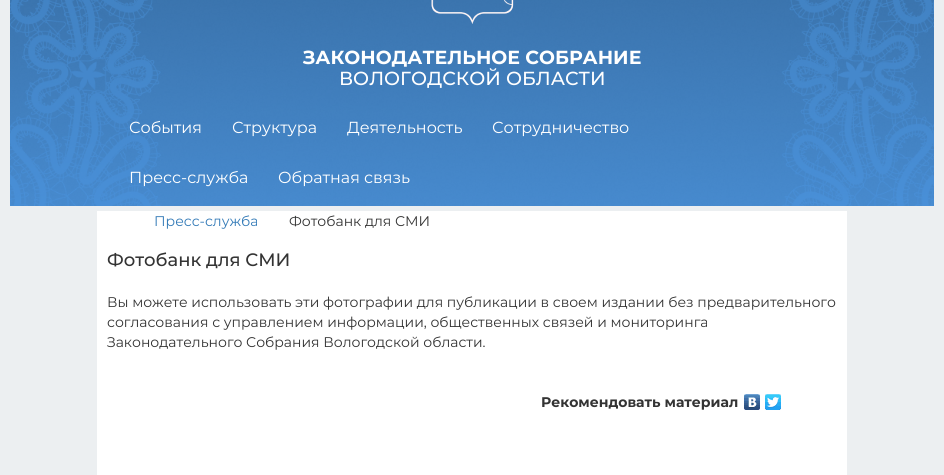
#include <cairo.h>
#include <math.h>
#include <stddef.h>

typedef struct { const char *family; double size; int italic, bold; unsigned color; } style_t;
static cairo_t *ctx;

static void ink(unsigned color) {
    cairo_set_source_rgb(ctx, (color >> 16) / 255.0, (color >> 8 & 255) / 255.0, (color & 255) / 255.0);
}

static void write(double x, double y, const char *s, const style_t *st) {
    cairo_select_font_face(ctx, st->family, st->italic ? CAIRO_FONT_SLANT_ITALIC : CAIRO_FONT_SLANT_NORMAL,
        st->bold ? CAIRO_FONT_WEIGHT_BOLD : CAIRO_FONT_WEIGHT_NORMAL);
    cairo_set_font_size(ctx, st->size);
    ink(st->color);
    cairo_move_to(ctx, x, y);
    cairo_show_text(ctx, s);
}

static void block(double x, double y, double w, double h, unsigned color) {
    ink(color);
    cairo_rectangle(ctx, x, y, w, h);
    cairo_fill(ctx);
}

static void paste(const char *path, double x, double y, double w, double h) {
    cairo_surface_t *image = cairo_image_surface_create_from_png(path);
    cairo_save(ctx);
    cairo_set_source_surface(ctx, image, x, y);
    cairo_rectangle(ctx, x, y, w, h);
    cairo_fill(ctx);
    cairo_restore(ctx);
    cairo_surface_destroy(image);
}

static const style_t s1 = {"Montserrat", 18.9, 0, 1, 0xffffff};
static const style_t s2 = {"Montserrat Medium", 18.9, 0, 0, 0xffffff};
static const style_t s3 = {"Montserrat", 16, 0, 0, 0xffffff};
static const style_t s4 = {"Montserrat", 14, 0, 0, 0x337ab7};
static const style_t s5 = {"Montserrat", 14, 0, 0, 0x333333};
static const style_t s6 = {"Montserrat Medium", 18, 0, 0, 0x333333};
static const style_t s7 = {"Montserrat", 14, 0, 1, 0x333333};

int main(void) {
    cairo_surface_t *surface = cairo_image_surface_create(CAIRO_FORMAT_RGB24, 944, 475);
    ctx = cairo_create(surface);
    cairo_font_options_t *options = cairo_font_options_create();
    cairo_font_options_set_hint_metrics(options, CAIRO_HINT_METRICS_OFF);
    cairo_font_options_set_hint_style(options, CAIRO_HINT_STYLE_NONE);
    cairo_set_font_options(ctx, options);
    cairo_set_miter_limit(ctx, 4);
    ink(0xeceff1);
    cairo_paint(ctx);
    paste("pic1.png", 10, 0, 924, 206);
    paste("pic2.png", 431, 0, 83, 24);
    write(303, 64, "ЗАКОНОДАТЕЛЬНОЕ СОБРАНИЕ", &s1);
    write(339, 85, "ВОЛОГОДСКОЙ ОБЛАСТИ", &s2);
    write(129, 133, "События", &s3);
    write(232, 133, "Структура", &s3);
    write(347, 133, "Деятельность", &s3);
    write(492, 133, "Сотрудничество", &s3);
    write(129, 183, "Пресс-служба", &s3);
    write(278, 183, "Обратная связь", &s3);
    block(97, 211, 750, 264, 0xffffff);
    write(154, 226, "Пресс-служба", &s4);
    write(289, 226, "Фотобанк для СМИ", &s5);
    write(107, 266, "Фотобанк для СМИ", &s6);
    write(107, 307, "Вы можете использовать эти фотографии для публикации в своем издании без предварительного", &s5);
    write(107, 327, "согласования с управлением информации, общественных связей и мониторинга", &s5);
    write(107, 347, "Законодательного Собрания Вологодской области.", &s5);
    write(541, 407, "Рекомендовать материал", &s7);
    paste("pic3.png", 744, 394, 16, 16);
    paste("pic4.png", 765, 394, 16, 16);
    cairo_surface_write_to_png(surface, "screenshot.png");
    cairo_font_options_destroy(options);
    cairo_destroy(ctx);
    cairo_surface_destroy(surface);
    return 0;
}
